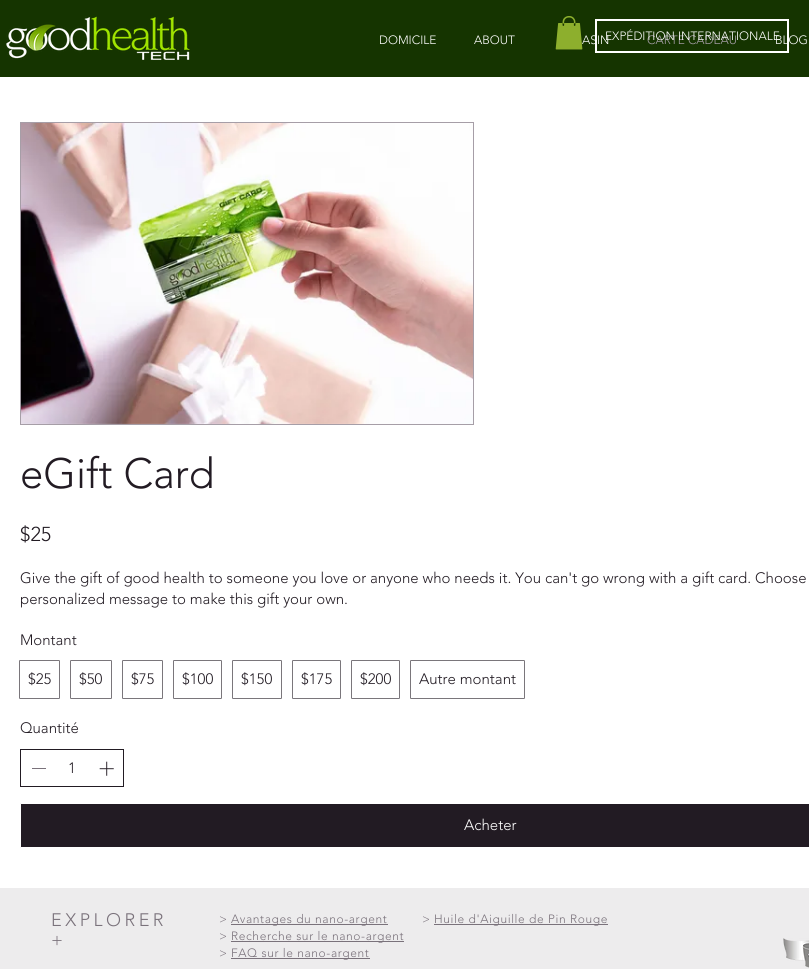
#include <cairo.h>
#include <math.h>
#include <stddef.h>

typedef struct { const char *family; double size; int italic, bold; unsigned color; } style_t;
static cairo_t *ctx;

static void ink(unsigned color) {
    cairo_set_source_rgb(ctx, (color >> 16) / 255.0, (color >> 8 & 255) / 255.0, (color & 255) / 255.0);
}

static void write(double x, double y, const char *s, const style_t *st) {
    cairo_select_font_face(ctx, st->family, st->italic ? CAIRO_FONT_SLANT_ITALIC : CAIRO_FONT_SLANT_NORMAL,
        st->bold ? CAIRO_FONT_WEIGHT_BOLD : CAIRO_FONT_WEIGHT_NORMAL);
    cairo_set_font_size(ctx, st->size);
    ink(st->color);
    cairo_move_to(ctx, x, y);
    cairo_show_text(ctx, s);
}

static void write_spaced(double x, double y, const char *s, double letter, double word) {
    cairo_move_to(ctx, x, y);
    while (*s) {
        char ch[5] = {0};
        int n = 0;
        do ch[n++] = *s++; while ((*s & 0xC0) == 0x80);
        cairo_show_text(ctx, ch);
        cairo_rel_move_to(ctx, letter + word * (*ch == ' '), 0);
    }
}

static void block(double x, double y, double w, double h, unsigned color) {
    ink(color);
    cairo_rectangle(ctx, x, y, w, h);
    cairo_fill(ctx);
}

static void round_path(double x, double y, double w, double h, double r) {
    cairo_new_sub_path(ctx);
    cairo_arc(ctx, x + w - r, y + h - r, r, 0, M_PI / 2);
    cairo_arc(ctx, x + r, y + h - r, r, M_PI / 2, M_PI);
    cairo_arc(ctx, x + r, y + r, r, M_PI, 1.5 * M_PI);
    cairo_arc(ctx, x + w - r, y + r, r, 1.5 * M_PI, 2 * M_PI);
    cairo_close_path(ctx);
}

static void paste(const char *path, double x, double y, double w, double h) {
    cairo_surface_t *image = cairo_image_surface_create_from_png(path);
    cairo_save(ctx);
    cairo_set_source_surface(ctx, image, x, y);
    cairo_rectangle(ctx, x, y, w, h);
    cairo_fill(ctx);
    cairo_restore(ctx);
    cairo_surface_destroy(image);
}

static const style_t s1 = {"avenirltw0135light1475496 Light", 12, 0, 0, 0xffffff};
static const style_t s2 = {"avenirltw0135light1475496 Light", 12, 0, 0, 0xa69ea7};
static const style_t s3 = {"avenirltw0135light1475496 Light", 42, 0, 0, 0x221b23};
static const style_t s4 = {"avenirltw0135light1475496 Light", 20, 0, 0, 0x221b23};
static const style_t s5 = {"avenirltw0135light1475496 Light", 15, 0, 0, 0x221b23};
static const style_t s6 = {"avenirltw0135light1475496 Light", 15, 0, 0, 0xffffff};

int main(void) {
    cairo_surface_t *surface = cairo_image_surface_create(CAIRO_FORMAT_RGB24, 809, 969);
    ctx = cairo_create(surface);
    cairo_font_options_t *options = cairo_font_options_create();
    cairo_font_options_set_hint_metrics(options, CAIRO_HINT_METRICS_OFF);
    cairo_font_options_set_hint_style(options, CAIRO_HINT_STYLE_NONE);
    cairo_set_font_options(ctx, options);
    cairo_set_miter_limit(ctx, 4);
    ink(0xffffff);
    cairo_paint(ctx);
    block(0, 0, 809, 77, 0x153400);
    write(582, 44, "ASIN", &s1);
    paste("pic1.png", 555, 16, 28, 34);
    cairo_rectangle(ctx, 596, 20, 192, 32);
    cairo_stroke(ctx);
    write(647, 44, "CARTE CADEAU", &s2);
    write(775, 44, "BLOG", &s1);
    write(605, 40, "EXPÉDITION INTERNATIONALE", &s1);
    paste("pic2.png", 6, 16, 184, 44);
    write(379, 44, "DOMICILE", &s1);
    write(474, 44, "ABOUT", &s1);
    cairo_rectangle(ctx, 20.5, 122.5, 453, 302);
    ink(0xa69ea7);
    cairo_set_line_width(ctx, 1);
    cairo_stroke(ctx);
    paste("pic3.png", 21, 123, 452, 301);
    write(20, 488, "eGift Card", &s3);
    write(20, 541, "$25", &s4);
    write(20, 583, "Give the gift of good health to someone you love or anyone who needs it. You can't go wrong with a gift card. Choose", &s5);
    write(20, 604, "personalized message to make this gift your own.", &s5);
    write(20, 645, "Montant", &s5);
    round_path(19.5, 660.5, 40, 38, 0.5);
    ink(0x7a767b);
    cairo_stroke(ctx);
    write(28, 684, "$25", &s5);
    round_path(70.5, 660.5, 41, 38, 0.5);
    ink(0x7a767b);
    cairo_stroke(ctx);
    write(79, 684, "$50", &s5);
    round_path(122.5, 660.5, 40, 38, 0.5);
    ink(0x7a767b);
    cairo_stroke(ctx);
    write(131, 684, "$75", &s5);
    round_path(173.5, 660.5, 48, 38, 0.5);
    ink(0x7a767b);
    cairo_stroke(ctx);
    write(182, 684, "$100", &s5);
    round_path(232.5, 660.5, 49, 38, 0.5);
    ink(0x7a767b);
    cairo_stroke(ctx);
    write(241, 684, "$150", &s5);
    round_path(292.5, 660.5, 48, 38, 0.5);
    ink(0x7a767b);
    cairo_stroke(ctx);
    write(301, 684, "$175", &s5);
    round_path(351.5, 660.5, 48, 38, 0.5);
    ink(0x7a767b);
    cairo_stroke(ctx);
    write(360, 684, "$200", &s5);
    round_path(410.5, 660.5, 114, 38, 0.5);
    ink(0x7a767b);
    cairo_stroke(ctx);
    write(419, 684, "Autre montant", &s5);
    write(20, 733, "Quantité", &s5);
    cairo_rectangle(ctx, 20.5, 749.5, 103, 37);
    cairo_stroke(ctx);
    block(32, 768, 14, 1, 0x7a727b);
    write(68, 773, "1", &s5);
    paste("pic4.png", 99, 761, 15, 15);
    round_path(20.5, 803.5, 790, 44, 0.5);
    cairo_fill_preserve(ctx);
    ink(0xffffff);
    cairo_stroke(ctx);
    write(464, 830, "Acheter", &s6);
    block(0, 888, 809, 81, 0xedeced);
    cairo_set_font_size(ctx, 18);
    ink(0x7a727b);
    write_spaced(51, 926, "EXPLORER", 3.5, 0);
    write_spaced(51, 946, "+", 3.5, 0);
    cairo_set_font_size(ctx, 12);
    write_spaced(219, 923, ">", 0.6, 0);
    block(231, 924, 157, 1, 0x7a727b);
    write_spaced(231, 923, "Avantages du nano-argent", 0.6, 0);
    write_spaced(219, 940, ">", 0.6, 0);
    block(231, 941, 173, 1, 0x7a727b);
    write_spaced(231, 940, "Recherche sur le nano-argent", 0.6, 0);
    write_spaced(219, 957, ">", 0.6, 0);
    block(231, 958, 139, 1, 0x7a727b);
    write_spaced(231, 957, "FAQ sur le nano-argent", 0.6, 0);
    write_spaced(422, 923, ">", 0.6, 0);
    block(434, 924, 174, 1, 0x7a727b);
    write_spaced(434, 923, "Huile d'Aiguille de Pin Rouge", 0.6, 0);
    paste("pic5.png", 783, 938, 26, 30);
    cairo_surface_write_to_png(surface, "screenshot.png");
    cairo_font_options_destroy(options);
    cairo_destroy(ctx);
    cairo_surface_destroy(surface);
    return 0;
}
